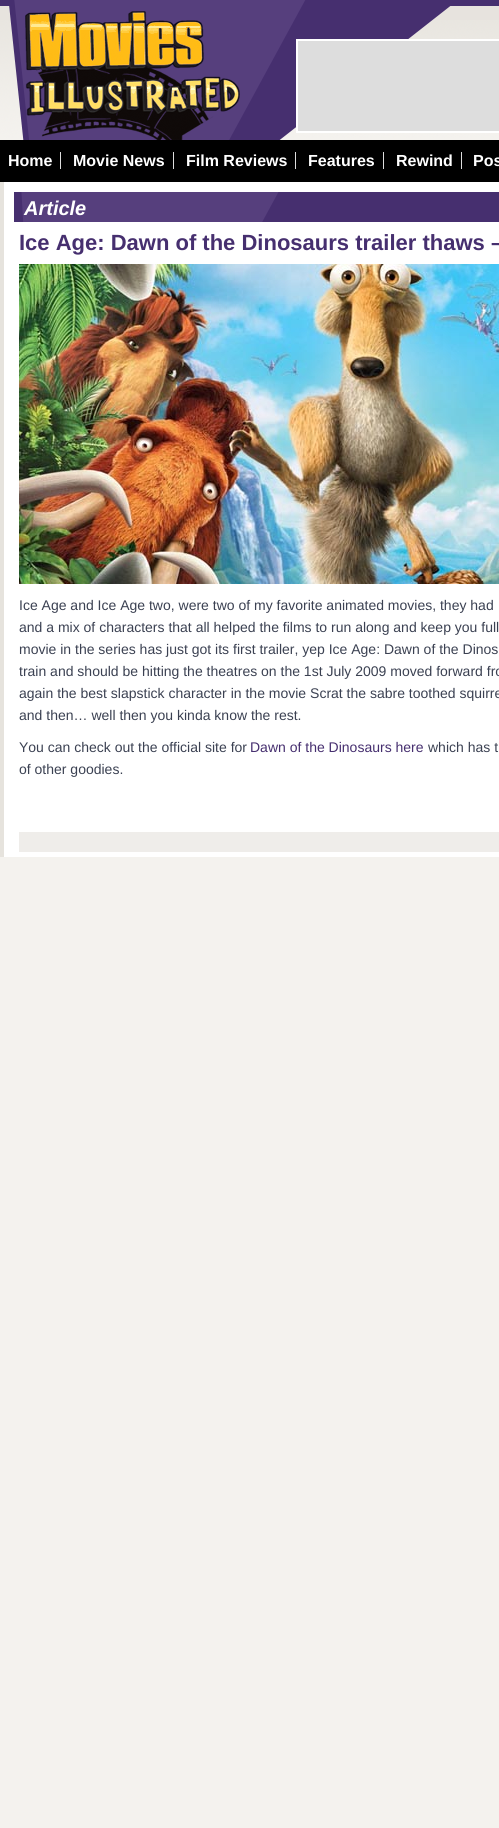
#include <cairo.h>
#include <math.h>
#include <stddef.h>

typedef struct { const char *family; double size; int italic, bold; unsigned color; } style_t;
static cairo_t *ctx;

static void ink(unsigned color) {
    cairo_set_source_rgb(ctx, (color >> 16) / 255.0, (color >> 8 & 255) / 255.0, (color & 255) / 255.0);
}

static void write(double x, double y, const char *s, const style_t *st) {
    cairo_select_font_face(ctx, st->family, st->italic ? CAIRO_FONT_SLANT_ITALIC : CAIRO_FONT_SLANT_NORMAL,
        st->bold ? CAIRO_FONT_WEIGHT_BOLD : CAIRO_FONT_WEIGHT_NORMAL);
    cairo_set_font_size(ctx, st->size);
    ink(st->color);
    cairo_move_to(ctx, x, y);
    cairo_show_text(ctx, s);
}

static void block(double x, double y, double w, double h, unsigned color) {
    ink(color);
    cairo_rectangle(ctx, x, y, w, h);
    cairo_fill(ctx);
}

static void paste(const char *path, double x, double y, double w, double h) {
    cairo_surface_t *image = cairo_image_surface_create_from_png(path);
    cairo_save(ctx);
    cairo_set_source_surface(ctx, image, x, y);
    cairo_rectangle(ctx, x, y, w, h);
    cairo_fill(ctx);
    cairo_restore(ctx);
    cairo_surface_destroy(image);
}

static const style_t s1 = {"Liberation Sans", 16, 0, 1, 0xffffff};
static const style_t s2 = {"Liberation Sans", 20, 1, 1, 0xffffff};
static const style_t s3 = {"Liberation Sans", 22, 0, 1, 0x462f6f};
static const style_t s4 = {"Liberation Sans", 14, 0, 0, 0x3b4152};
static const style_t s5 = {"Liberation Sans", 14, 0, 0, 0x462f6f};

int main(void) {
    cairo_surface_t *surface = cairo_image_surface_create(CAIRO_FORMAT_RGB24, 499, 1828);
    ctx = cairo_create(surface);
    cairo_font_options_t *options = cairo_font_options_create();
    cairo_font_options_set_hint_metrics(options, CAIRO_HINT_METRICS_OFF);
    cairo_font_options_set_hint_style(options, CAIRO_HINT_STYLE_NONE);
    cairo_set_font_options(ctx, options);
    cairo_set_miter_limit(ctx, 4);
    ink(0xf4f2ee);
    cairo_paint(ctx);
    paste("pic1.png", 0, 0, 499, 140);
    paste("pic2.png", 9, 0, 442, 140);
    ink(0xdddddd);
    cairo_rectangle(ctx, 297, 40, 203, 92);
    cairo_fill_preserve(ctx);
    ink(0xffffff);
    cairo_stroke(ctx);
    block(0, 140, 499, 42, 0x000000);
    write(8, 166, "Home", &s1);
    block(60, 152, 1, 17, 0xdddddd);
    write(73, 166, "Movie News", &s1);
    block(173, 152, 1, 17, 0xdddddd);
    write(186, 166, "Film Reviews", &s1);
    block(295, 152, 1, 17, 0xdddddd);
    write(308, 166, "Features", &s1);
    block(383, 152, 1, 17, 0xdddddd);
    write(396, 166, "Rewind", &s1);
    block(461, 152, 1, 17, 0xdddddd);
    write(473, 166, "Pos", &s1);
    block(4, 182, 495, 675, 0xffffff);
    block(0, 182, 4, 675, 0xe6e3dd);
    paste("pic3.png", 14, 192, 485, 30);
    write(24, 215, "Article", &s2);
    write(19, 250, "Ice Age: Dawn of the Dinosaurs trailer thaws –", &s3);
    paste("pic4.png", 19, 264, 480, 320);
    write(19, 610, "Ice Age and Ice Age two, were two of my favorite animated movies, they had", &s4);
    write(19, 632, "and a mix of characters that all helped the films to run along and keep you full", &s4);
    write(19, 654, "movie in the series has just got its first trailer, yep Ice Age: Dawn of the Dinos", &s4);
    write(19, 676, "train and should be hitting the theatres on the 1st July 2009 moved forward fro", &s4);
    write(19, 698, "again the best slapstick character in the movie Scrat the sabre toothed squirre", &s4);
    write(19, 720, "and then… well then you kinda know the rest.", &s4);
    write(19, 752, "You can check out the official site for", &s4);
    write(250, 752, "Dawn of the Dinosaurs here", &s5);
    write(428, 752, "which has t", &s4);
    write(19, 774, "of other goodies.", &s4);
    block(19, 832, 480, 20, 0xefedea);
    cairo_surface_write_to_png(surface, "screenshot.png");
    cairo_font_options_destroy(options);
    cairo_destroy(ctx);
    cairo_surface_destroy(surface);
    return 0;
}
